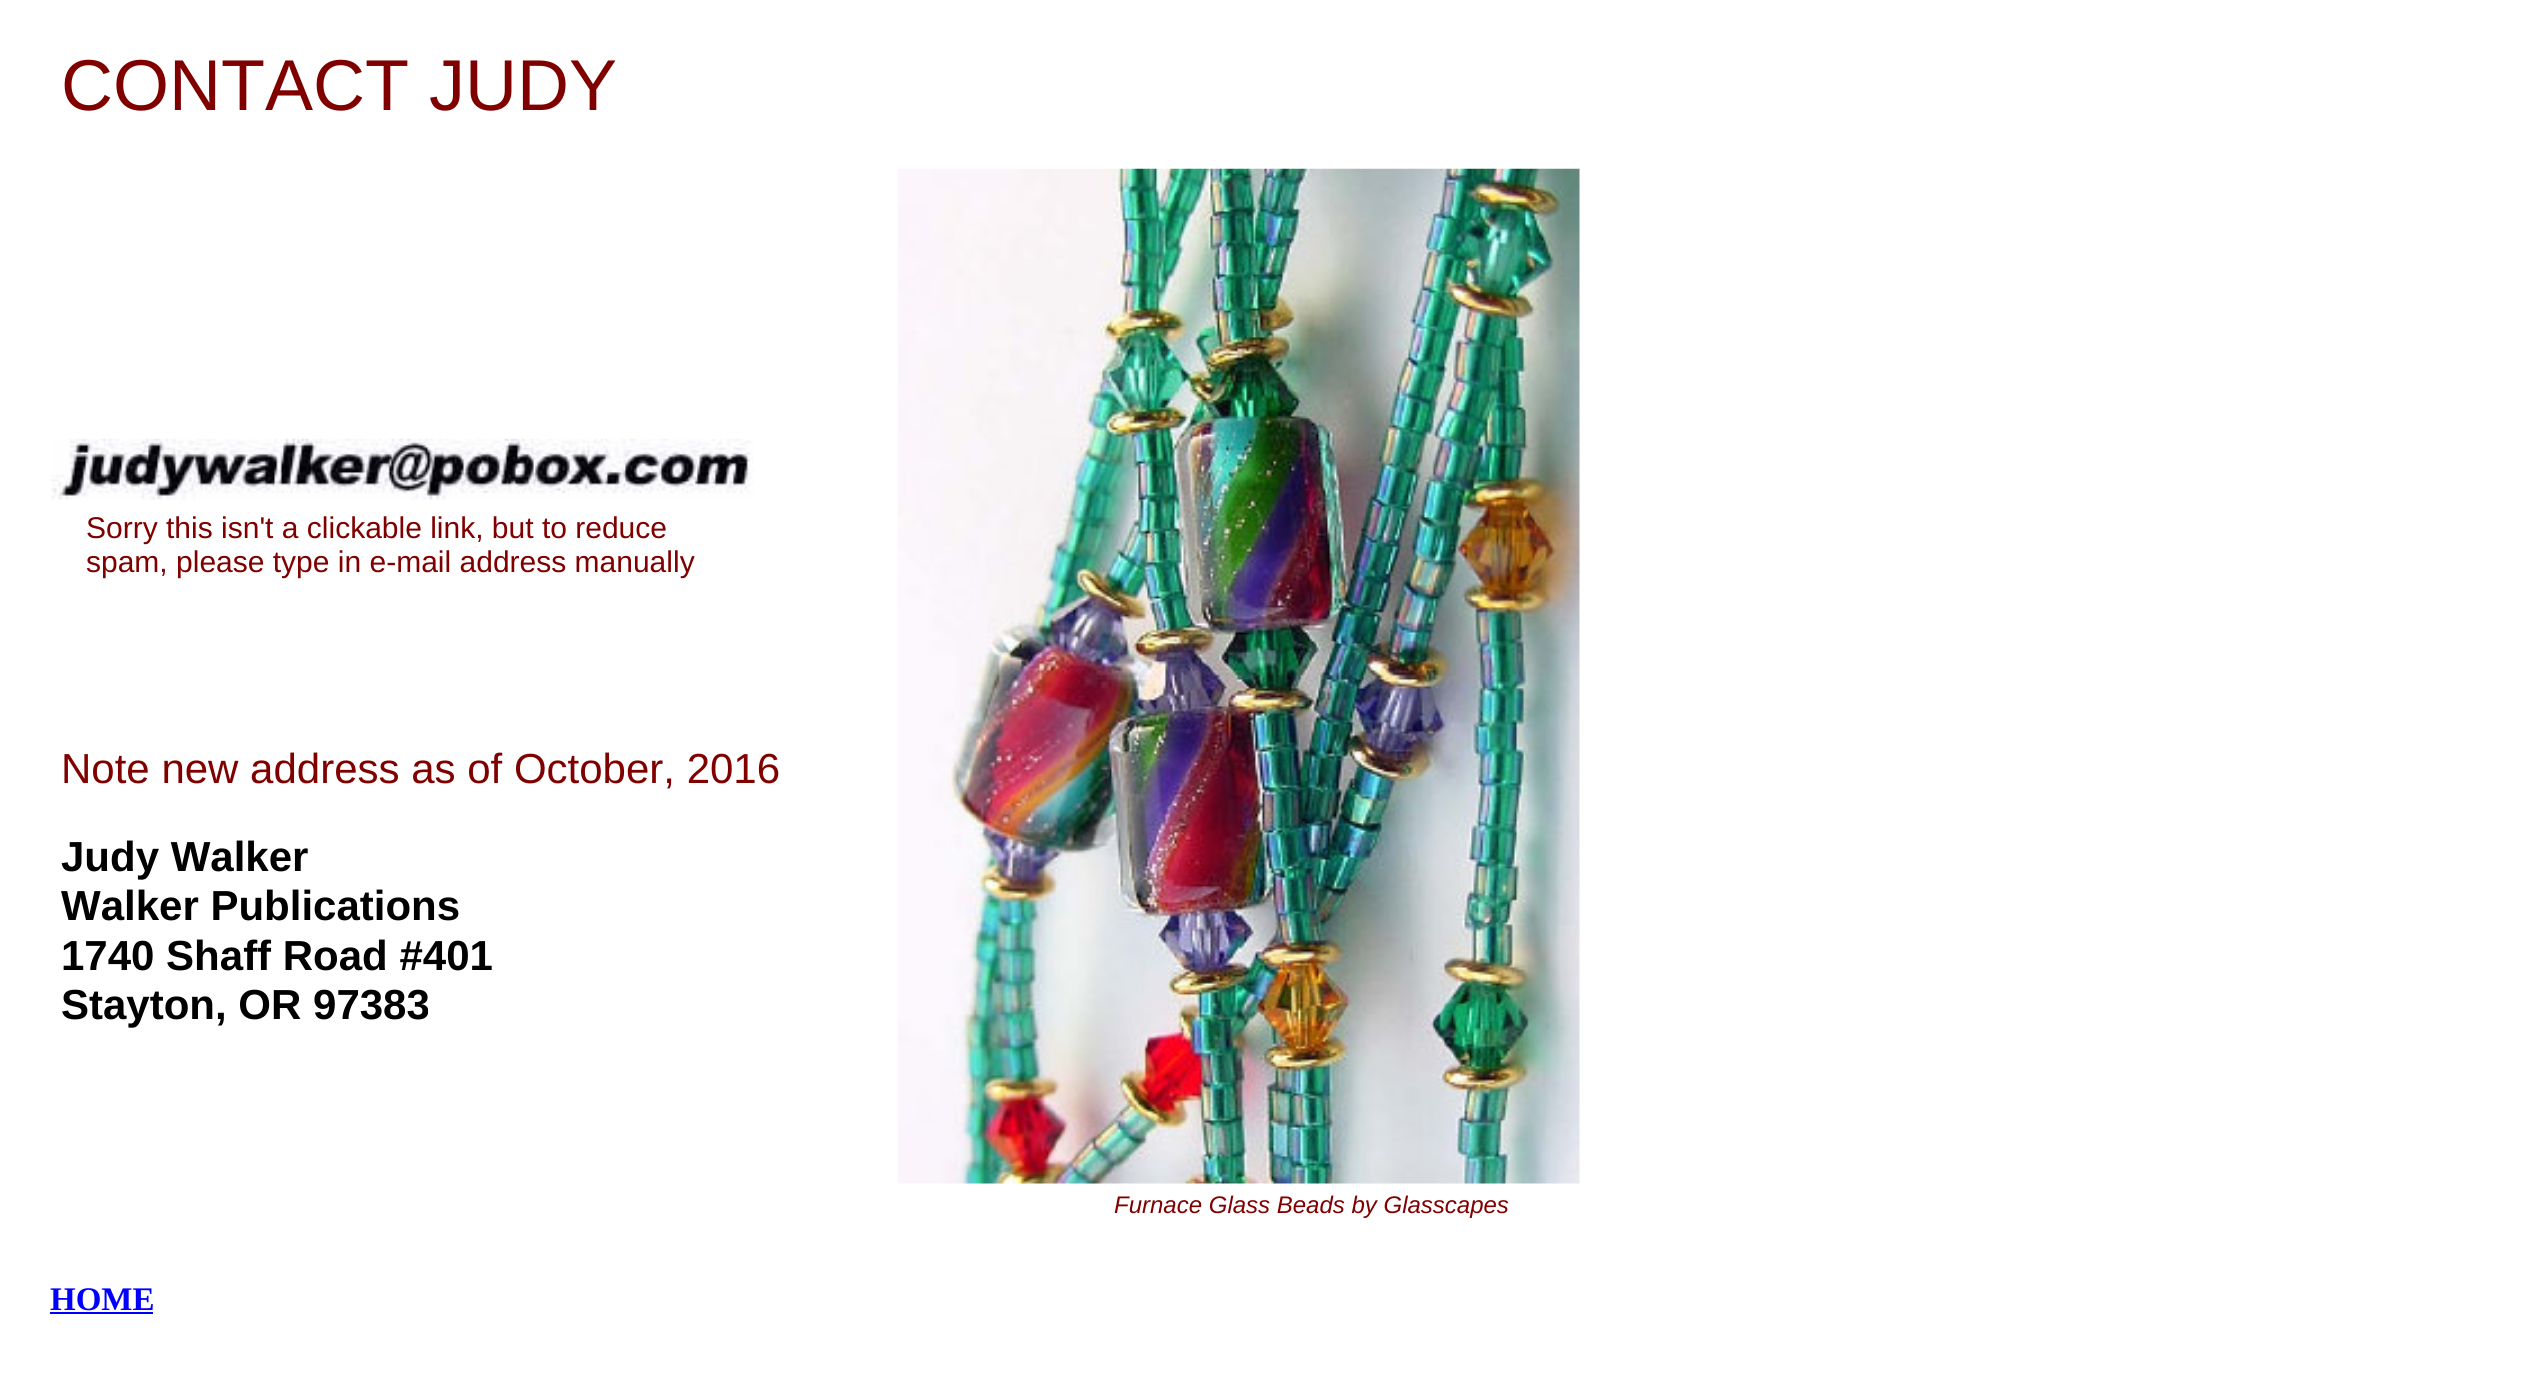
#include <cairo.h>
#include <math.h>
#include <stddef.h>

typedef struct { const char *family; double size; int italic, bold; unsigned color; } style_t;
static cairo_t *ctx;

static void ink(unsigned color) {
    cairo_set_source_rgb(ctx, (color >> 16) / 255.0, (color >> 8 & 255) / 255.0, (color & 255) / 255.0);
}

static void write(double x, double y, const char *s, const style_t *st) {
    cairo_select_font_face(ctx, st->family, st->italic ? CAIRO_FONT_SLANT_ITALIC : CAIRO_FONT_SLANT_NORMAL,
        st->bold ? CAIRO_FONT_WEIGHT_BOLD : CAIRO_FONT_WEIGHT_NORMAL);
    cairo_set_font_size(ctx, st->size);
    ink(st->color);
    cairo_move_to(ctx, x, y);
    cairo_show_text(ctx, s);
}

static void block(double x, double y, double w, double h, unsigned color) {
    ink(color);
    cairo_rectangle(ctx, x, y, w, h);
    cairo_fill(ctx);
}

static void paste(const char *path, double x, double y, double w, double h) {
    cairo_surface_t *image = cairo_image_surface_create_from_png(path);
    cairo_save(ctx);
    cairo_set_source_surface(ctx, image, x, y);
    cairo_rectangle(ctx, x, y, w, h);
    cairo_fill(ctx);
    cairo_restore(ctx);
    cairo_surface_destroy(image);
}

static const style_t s1 = {"Liberation Sans", 72, 0, 0, 0x800000};
static const style_t s2 = {"Liberation Sans", 30, 0, 0, 0x800000};
static const style_t s3 = {"Liberation Sans", 42, 0, 0, 0x800000};
static const style_t s4 = {"Liberation Sans", 42, 0, 1, 0x000000};
static const style_t s5 = {"Liberation Sans", 24, 1, 0, 0x800000};
static const style_t s6 = {"Liberation Serif", 33, 0, 1, 0x0000ff};

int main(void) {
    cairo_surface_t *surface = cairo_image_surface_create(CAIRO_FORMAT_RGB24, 2526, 1394);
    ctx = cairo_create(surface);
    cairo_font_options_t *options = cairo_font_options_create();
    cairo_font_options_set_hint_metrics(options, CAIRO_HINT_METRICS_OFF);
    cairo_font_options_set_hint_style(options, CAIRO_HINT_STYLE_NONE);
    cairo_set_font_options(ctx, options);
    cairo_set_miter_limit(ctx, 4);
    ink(0xffffff);
    cairo_paint(ctx);
    write(61, 110, "CONTACT JUDY", &s1);
    paste("pic1.png", 51, 438, 703, 62);
    paste("pic2.png", 898, 168, 682, 1016);
    write(86, 538, "Sorry this isn't a clickable link, but to reduce", &s2);
    write(86, 572, "spam, please type in e-mail address manually", &s2);
    write(61, 783, "Note new address as of October, 2016", &s3);
    write(61, 871, "Judy Walker", &s4);
    write(61, 920, "Walker Publications", &s4);
    write(61, 970, "1740 Shaff Road #401", &s4);
    write(61, 1019, "Stayton, OR 97383", &s4);
    write(1114, 1213, "Furnace Glass Beads by Glasscapes", &s5);
    write(50, 1310, "HOME", &s6);
    block(50, 1312, 103, 2, 0x0000ff);
    cairo_surface_write_to_png(surface, "screenshot.png");
    cairo_font_options_destroy(options);
    cairo_destroy(ctx);
    cairo_surface_destroy(surface);
    return 0;
}
